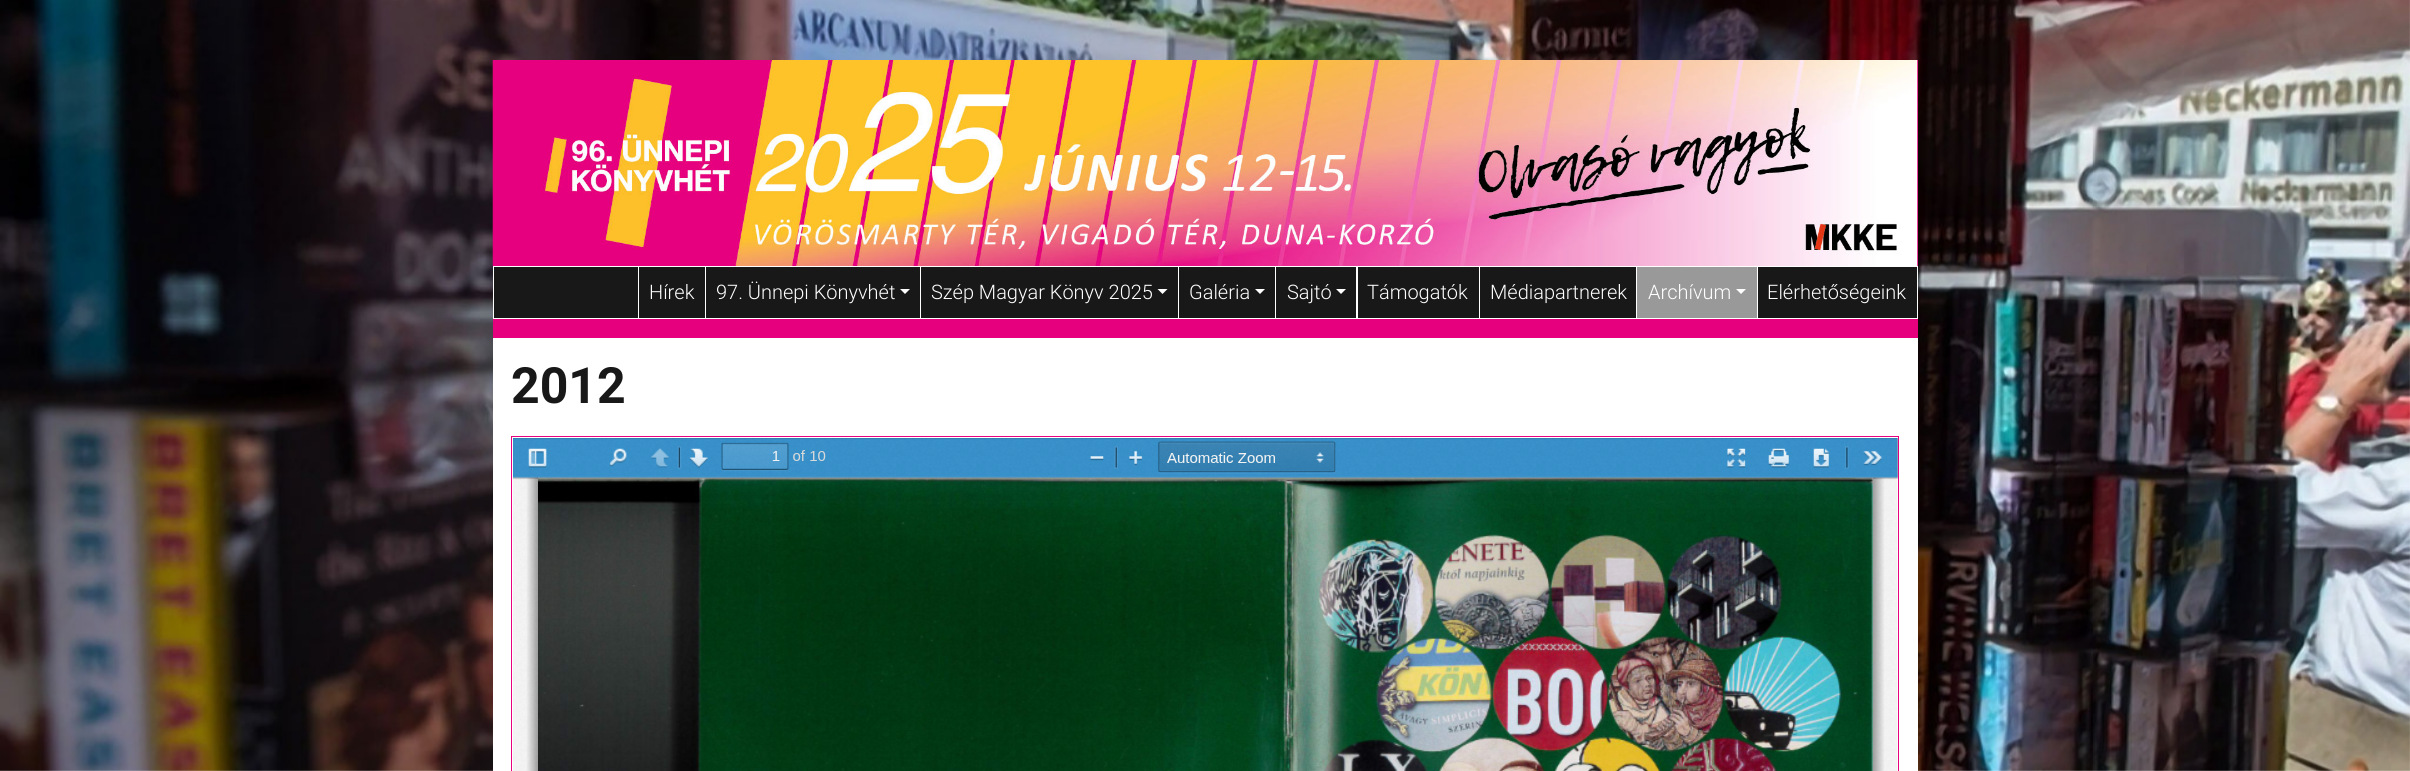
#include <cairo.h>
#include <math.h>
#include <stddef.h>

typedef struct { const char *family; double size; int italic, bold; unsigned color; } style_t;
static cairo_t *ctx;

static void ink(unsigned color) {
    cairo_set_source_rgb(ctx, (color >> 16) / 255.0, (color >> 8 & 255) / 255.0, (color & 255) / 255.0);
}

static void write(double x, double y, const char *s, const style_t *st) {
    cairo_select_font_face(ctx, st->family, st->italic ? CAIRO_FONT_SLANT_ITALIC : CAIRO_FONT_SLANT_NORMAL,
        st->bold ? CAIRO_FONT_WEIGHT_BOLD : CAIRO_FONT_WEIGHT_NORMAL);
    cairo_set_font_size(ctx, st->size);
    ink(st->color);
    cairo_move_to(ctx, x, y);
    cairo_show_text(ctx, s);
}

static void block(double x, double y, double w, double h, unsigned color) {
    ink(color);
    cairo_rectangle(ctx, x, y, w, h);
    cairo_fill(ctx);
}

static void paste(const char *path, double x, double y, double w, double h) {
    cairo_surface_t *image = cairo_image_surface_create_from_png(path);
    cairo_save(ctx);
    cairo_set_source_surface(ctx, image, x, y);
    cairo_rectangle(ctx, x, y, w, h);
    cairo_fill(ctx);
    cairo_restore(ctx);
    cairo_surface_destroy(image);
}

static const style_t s1 = {"Roboto Light", 20, 0, 0, 0xffffff};
static const style_t s2 = {"Roboto", 50, 0, 1, 0x181818};

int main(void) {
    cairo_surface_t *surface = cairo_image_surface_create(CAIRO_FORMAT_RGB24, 2410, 771);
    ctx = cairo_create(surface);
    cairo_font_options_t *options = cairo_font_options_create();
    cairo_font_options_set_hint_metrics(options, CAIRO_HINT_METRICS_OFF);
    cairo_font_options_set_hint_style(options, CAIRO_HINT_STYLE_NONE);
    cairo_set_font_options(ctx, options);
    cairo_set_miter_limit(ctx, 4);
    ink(0xffffff);
    cairo_paint(ctx);
    paste("pic1.png", 0, 0, 2410, 771);
    block(1917, 60, 1, 206, 0xe6007e);
    paste("pic2.png", 492, 60, 1426, 206);
    ink(0x181818);
    cairo_rectangle(ctx, 493.5, 266.5, 1424, 52);
    cairo_fill_preserve(ctx);
    ink(0xffffff);
    cairo_set_line_width(ctx, 1);
    cairo_stroke(ctx);
    cairo_rectangle(ctx, 638.5, 266.5, 67, 52);
    cairo_stroke(ctx);
    write(649, 299, "Hírek", &s1);
    cairo_rectangle(ctx, 705.5, 266.5, 215, 52);
    cairo_stroke(ctx);
    write(716, 299, "97. Ünnepi Könyvhét", &s1);
    cairo_new_path(ctx);
    cairo_move_to(ctx, 900, 289);
    cairo_line_to(ctx, 910, 289);
    cairo_line_to(ctx, 905, 294);
    cairo_close_path(ctx);
    cairo_fill(ctx);
    cairo_rectangle(ctx, 920.5, 266.5, 258, 52);
    cairo_stroke(ctx);
    write(931, 299, "Szép Magyar Könyv 2025", &s1);
    cairo_new_path(ctx);
    cairo_move_to(ctx, 1157.5, 289);
    cairo_line_to(ctx, 1167.5, 289);
    cairo_line_to(ctx, 1162.5, 294);
    cairo_close_path(ctx);
    cairo_fill(ctx);
    cairo_rectangle(ctx, 1178.5, 266.5, 97, 52);
    cairo_stroke(ctx);
    write(1189, 299, "Galéria", &s1);
    cairo_new_path(ctx);
    cairo_move_to(ctx, 1255, 289);
    cairo_line_to(ctx, 1265, 289);
    cairo_line_to(ctx, 1260, 294);
    cairo_close_path(ctx);
    cairo_fill(ctx);
    cairo_rectangle(ctx, 1356.5, 266.5, 123, 52);
    cairo_stroke(ctx);
    cairo_rectangle(ctx, 1275.5, 266.5, 82, 52);
    cairo_stroke(ctx);
    write(1287, 299, "Sajtó", &s1);
    cairo_new_path(ctx);
    cairo_move_to(ctx, 1336, 289);
    cairo_line_to(ctx, 1346, 289);
    cairo_line_to(ctx, 1341, 294);
    cairo_close_path(ctx);
    cairo_fill(ctx);
    write(1367, 299, "Támogatók", &s1);
    cairo_rectangle(ctx, 1479.5, 266.5, 158, 52);
    cairo_stroke(ctx);
    write(1490, 299, "Médiapartnerek", &s1);
    cairo_rectangle(ctx, 1756.5, 266.5, 161, 52);
    cairo_stroke(ctx);
    ink(0x999999);
    cairo_rectangle(ctx, 1636.5, 266.5, 121, 52);
    cairo_fill_preserve(ctx);
    ink(0xffffff);
    cairo_stroke(ctx);
    write(1648, 299, "Archívum", &s1);
    cairo_new_path(ctx);
    cairo_move_to(ctx, 1736, 289);
    cairo_line_to(ctx, 1746, 289);
    cairo_line_to(ctx, 1741, 294);
    cairo_close_path(ctx);
    cairo_fill(ctx);
    write(1767, 299, "Elérhetőségeink", &s1);
    block(493, 319, 1425, 19, 0xe6007e);
    block(493, 338, 1425, 433, 0xffffff);
    write(511, 403, "2012", &s2);
    cairo_rectangle(ctx, 511.5, 436.5, 1387, 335);
    ink(0xe6007e);
    cairo_stroke(ctx);
    paste("pic3.png", 513, 438, 1385, 333);
    cairo_surface_write_to_png(surface, "screenshot.png");
    cairo_font_options_destroy(options);
    cairo_destroy(ctx);
    cairo_surface_destroy(surface);
    return 0;
}
